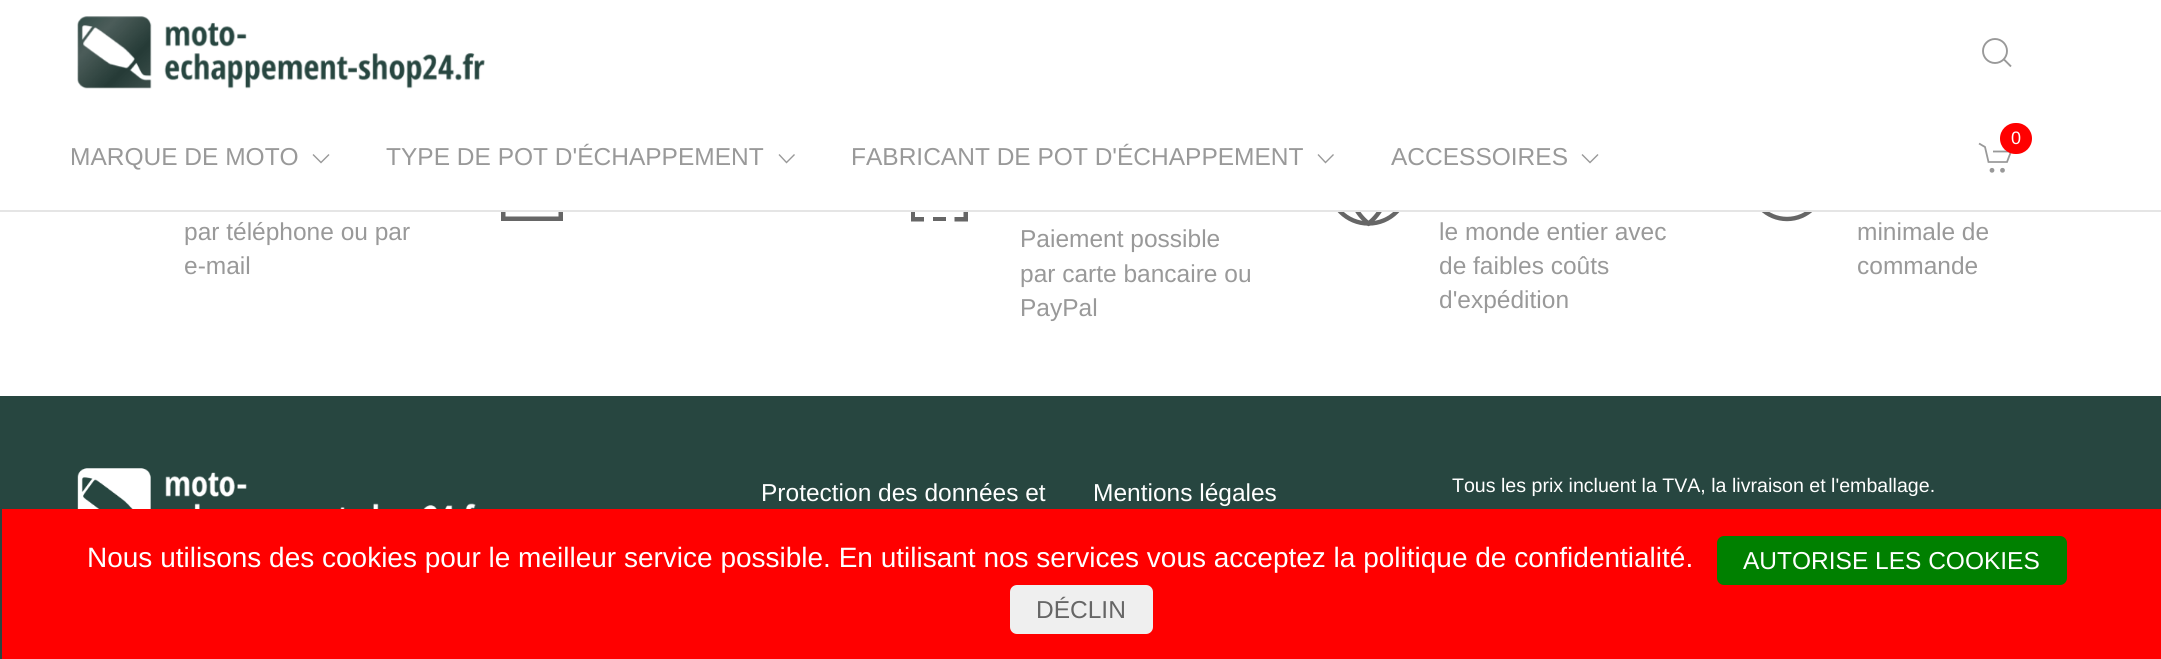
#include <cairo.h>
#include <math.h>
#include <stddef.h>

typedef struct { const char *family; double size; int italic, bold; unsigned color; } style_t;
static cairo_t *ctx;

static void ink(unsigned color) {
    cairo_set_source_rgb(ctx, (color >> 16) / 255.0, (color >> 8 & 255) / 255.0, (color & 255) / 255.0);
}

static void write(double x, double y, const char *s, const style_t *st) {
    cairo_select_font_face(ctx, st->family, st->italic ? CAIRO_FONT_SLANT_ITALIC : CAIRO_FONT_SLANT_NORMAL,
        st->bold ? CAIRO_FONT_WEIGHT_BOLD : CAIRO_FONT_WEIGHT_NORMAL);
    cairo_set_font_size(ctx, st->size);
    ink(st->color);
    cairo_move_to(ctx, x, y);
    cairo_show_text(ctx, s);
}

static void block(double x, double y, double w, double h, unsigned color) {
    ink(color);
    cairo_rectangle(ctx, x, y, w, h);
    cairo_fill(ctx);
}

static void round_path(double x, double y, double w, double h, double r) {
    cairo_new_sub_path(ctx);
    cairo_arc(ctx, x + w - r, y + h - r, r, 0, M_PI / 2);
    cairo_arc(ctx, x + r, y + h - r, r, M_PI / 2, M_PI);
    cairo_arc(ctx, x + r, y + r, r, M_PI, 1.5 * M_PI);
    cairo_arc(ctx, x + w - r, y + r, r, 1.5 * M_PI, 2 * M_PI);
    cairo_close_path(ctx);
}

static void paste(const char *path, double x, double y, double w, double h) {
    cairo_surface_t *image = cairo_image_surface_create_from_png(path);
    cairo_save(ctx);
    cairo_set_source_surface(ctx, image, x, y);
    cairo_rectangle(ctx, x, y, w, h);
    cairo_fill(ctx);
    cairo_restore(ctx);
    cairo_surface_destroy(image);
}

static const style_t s1 = {"Liberation Sans", 18, 0, 0, 0xffffff};
static const style_t s2 = {"Liberation Sans", 24.5, 0, 0, 0x999999};
static const style_t s3 = {"Liberation Sans", 24.5, 0, 0, 0xffffff};
static const style_t s4 = {"Liberation Sans", 19.6, 0, 0, 0xffffff};
static const style_t s5 = {"Liberation Sans", 28, 0, 0, 0xffffff};
static const style_t s6 = {"Liberation Sans", 24.5, 0, 0, 0x666666};

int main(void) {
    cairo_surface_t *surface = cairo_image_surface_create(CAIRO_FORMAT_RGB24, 2161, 659);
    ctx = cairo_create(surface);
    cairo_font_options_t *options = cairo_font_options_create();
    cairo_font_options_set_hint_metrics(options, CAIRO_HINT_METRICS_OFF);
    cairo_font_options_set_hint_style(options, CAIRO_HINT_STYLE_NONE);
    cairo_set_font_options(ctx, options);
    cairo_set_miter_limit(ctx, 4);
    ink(0xffffff);
    cairo_paint(ctx);
    cairo_rectangle(ctx, 503.25, 175.25, 57.5, 43.5);
    ink(0x666666);
    cairo_set_line_width(ctx, 4.5);
    cairo_stroke(ctx);
    cairo_new_path(ctx);
    cairo_move_to(ctx, 911, 208);
    cairo_line_to(ctx, 915, 208);
    cairo_line_to(ctx, 915, 217);
    cairo_line_to(ctx, 924, 217);
    cairo_line_to(ctx, 924, 221.5);
    cairo_line_to(ctx, 911, 221.5);
    cairo_close_path(ctx);
    cairo_move_to(ctx, 968, 208);
    cairo_line_to(ctx, 968, 221.5);
    cairo_line_to(ctx, 954.5, 221.5);
    cairo_line_to(ctx, 954.5, 217);
    cairo_line_to(ctx, 963.5, 217);
    cairo_line_to(ctx, 963.5, 208);
    cairo_close_path(ctx);
    cairo_fill(ctx);
    cairo_new_path(ctx);
    cairo_move_to(ctx, 1368.5, 223.5);
    cairo_curve_to(ctx, 1343, 203, 1343, 166, 1368.5, 145.5);
    cairo_curve_to(ctx, 1394, 166, 1394, 203, 1368.5, 223.5);
    cairo_close_path(ctx);
    cairo_set_line_width(ctx, 4.4);
    cairo_stroke(ctx);
    cairo_arc(ctx, 1368.5, 184, 39.5, 0, 2 * M_PI);
    cairo_stroke(ctx);
    cairo_arc(ctx, 1787, 182, 37, 0, 2 * M_PI);
    cairo_stroke(ctx);
    block(501, 142, 1326, 68, 0xffffff);
    block(0, 210, 2161, 2, 0xe5e5e5);
    cairo_arc(ctx, 1995, 51, 12, 0, 2 * M_PI);
    ink(0x999999);
    cairo_set_line_width(ctx, 1.9);
    cairo_stroke(ctx);
    cairo_new_path(ctx);
    cairo_move_to(ctx, 2004, 59.5);
    cairo_line_to(ctx, 2011, 66.5);
    cairo_close_path(ctx);
    cairo_stroke(ctx);
    cairo_new_path(ctx);
    cairo_move_to(ctx, 1979, 143.5);
    cairo_line_to(ctx, 1985, 147);
    cairo_line_to(ctx, 1988.5, 162);
    cairo_line_to(ctx, 2007, 162);
    cairo_line_to(ctx, 2011, 151.5);
    cairo_line_to(ctx, 1993, 151.5);
    cairo_set_line_width(ctx, 1.8);
    cairo_stroke(ctx);
    ink(0xff0000);
    round_path(2000, 123, 32, 31, 15.5);
    cairo_fill(ctx);
    write(2011, 144, "0", &s1);
    ink(0x999999);
    cairo_new_path(ctx);
    cairo_arc(ctx, 1992, 170.3, 2.4, 0, 2 * M_PI);
    cairo_fill(ctx);
    cairo_arc(ctx, 2002.5, 170.3, 2.4, 0, 2 * M_PI);
    cairo_fill(ctx);
    paste("pic1.png", 77, 16, 408, 73);
    write(70, 165, "MARQUE DE MOTO", &s2);
    cairo_new_path(ctx);
    cairo_move_to(ctx, 329, 154.5);
    cairo_line_to(ctx, 321, 162.5);
    cairo_line_to(ctx, 313, 154.5);
    cairo_set_line_width(ctx, 1.4);
    cairo_stroke(ctx);
    write(386, 165, "TYPE DE POT D'ÉCHAPPEMENT", &s2);
    cairo_new_path(ctx);
    cairo_move_to(ctx, 794.5, 154.5);
    cairo_line_to(ctx, 786.5, 162.5);
    cairo_line_to(ctx, 779, 154.5);
    cairo_stroke(ctx);
    write(851, 165, "FABRICANT DE POT D'ÉCHAPPEMENT", &s2);
    cairo_new_path(ctx);
    cairo_move_to(ctx, 1333.5, 154.5);
    cairo_line_to(ctx, 1325.5, 162.5);
    cairo_line_to(ctx, 1318, 154.5);
    cairo_stroke(ctx);
    write(1391, 165, "ACCESSOIRES", &s2);
    cairo_new_path(ctx);
    cairo_move_to(ctx, 1598, 154.5);
    cairo_line_to(ctx, 1590, 162.5);
    cairo_line_to(ctx, 1582, 154.5);
    cairo_stroke(ctx);
    write(184, 240, "par téléphone ou par", &s2);
    write(184, 274, "e-mail", &s2);
    block(933, 217, 13, 4, 0x666666);
    write(1020, 247, "Paiement possible", &s2);
    write(1020, 282, "par carte bancaire ou", &s2);
    write(1020, 316, "PayPal", &s2);
    write(1439, 240, "le monde entier avec", &s2);
    write(1439, 274, "de faibles coûts", &s2);
    write(1439, 308, "d'expédition", &s2);
    write(1857, 240, "minimale de", &s2);
    write(1857, 274, "commande", &s2);
    block(0, 396, 2161, 263, 0x274640);
    paste("pic2.png", 77, 468, 399, 41);
    write(761, 501, "Protection des données et", &s3);
    write(1093, 501, "Mentions légales", &s3);
    write(1452, 492, "Tous les prix incluent la TVA, la livraison et l'emballage.", &s4);
    block(2, 509, 2159, 150, 0xff0000);
    write(87, 567, "Nous utilisons des cookies pour le meilleur service possible. En utilisant nos services vous acceptez la politique de confidentialité.", &s5);
    ink(0x008000);
    round_path(1717, 536, 350, 49, 7);
    cairo_fill(ctx);
    write(1743, 569, "AUTORISE LES COOKIES", &s3);
    ink(0xefefef);
    round_path(1010, 585, 143, 49, 7);
    cairo_fill(ctx);
    write(1036, 618, "DÉCLIN", &s6);
    cairo_surface_write_to_png(surface, "screenshot.png");
    cairo_font_options_destroy(options);
    cairo_destroy(ctx);
    cairo_surface_destroy(surface);
    return 0;
}
